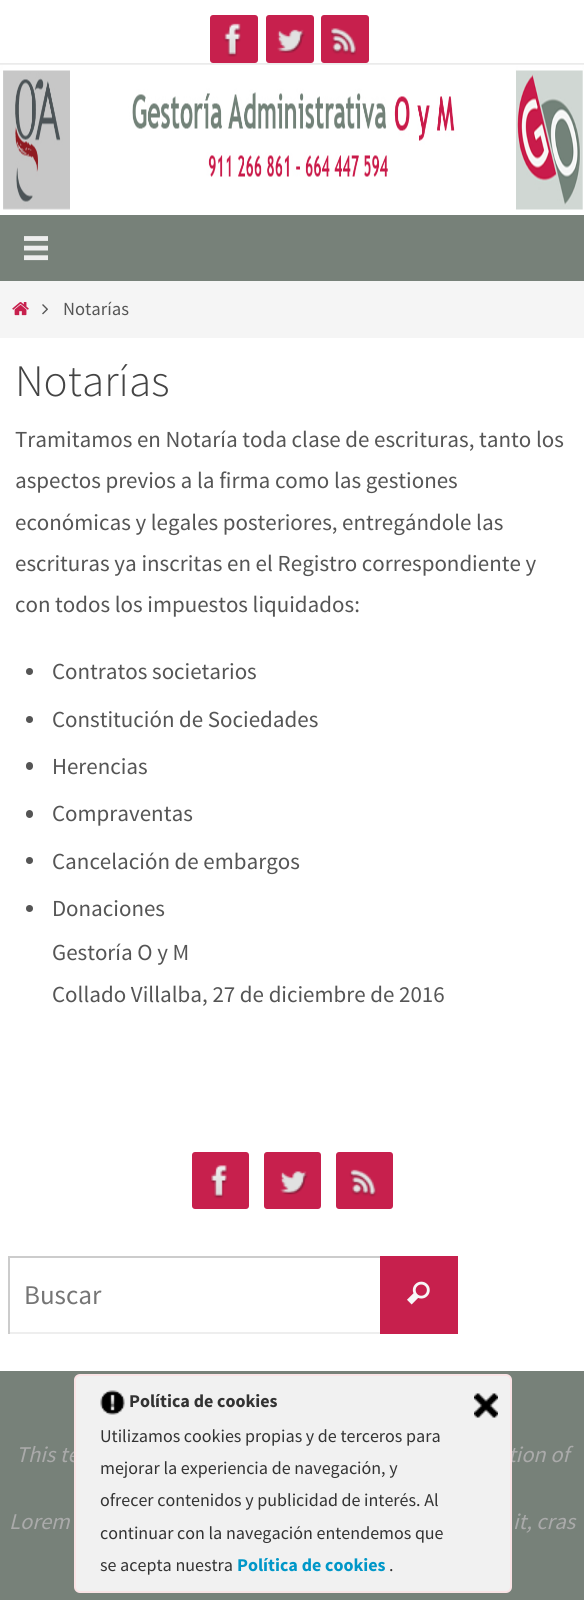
#include <cairo.h>
#include <math.h>
#include <stddef.h>

typedef struct { const char *family; double size; int italic, bold; unsigned color; } style_t;
static cairo_t *ctx;

static void ink(unsigned color) {
    cairo_set_source_rgb(ctx, (color >> 16) / 255.0, (color >> 8 & 255) / 255.0, (color & 255) / 255.0);
}

static void write(double x, double y, const char *s, const style_t *st) {
    cairo_select_font_face(ctx, st->family, st->italic ? CAIRO_FONT_SLANT_ITALIC : CAIRO_FONT_SLANT_NORMAL,
        st->bold ? CAIRO_FONT_WEIGHT_BOLD : CAIRO_FONT_WEIGHT_NORMAL);
    cairo_set_font_size(ctx, st->size);
    ink(st->color);
    cairo_move_to(ctx, x, y);
    cairo_show_text(ctx, s);
}

static void block(double x, double y, double w, double h, unsigned color) {
    ink(color);
    cairo_rectangle(ctx, x, y, w, h);
    cairo_fill(ctx);
}

static void round_path(double x, double y, double w, double h, double r) {
    cairo_new_sub_path(ctx);
    cairo_arc(ctx, x + w - r, y + h - r, r, 0, M_PI / 2);
    cairo_arc(ctx, x + r, y + h - r, r, M_PI / 2, M_PI);
    cairo_arc(ctx, x + r, y + r, r, M_PI, 1.5 * M_PI);
    cairo_arc(ctx, x + w - r, y + r, r, 1.5 * M_PI, 2 * M_PI);
    cairo_close_path(ctx);
}

static void paste(const char *path, double x, double y, double w, double h) {
    cairo_surface_t *image = cairo_image_surface_create_from_png(path);
    cairo_save(ctx);
    cairo_set_source_surface(ctx, image, x, y);
    cairo_rectangle(ctx, x, y, w, h);
    cairo_fill(ctx);
    cairo_restore(ctx);
    cairo_surface_destroy(image);
}

static const style_t s1 = {"Source Sans Pro", 18.5, 0, 0, 0x555555};
static const style_t s2 = {"Source Sans Pro Light", 45, 0, 0, 0x444444};
static const style_t s3 = {"Source Sans Pro", 22.95, 0, 0, 0x555555};
static const style_t s4 = {"Source Sans Pro", 27, 0, 0, 0x757575};
static const style_t s5 = {"Source Sans Pro", 22.5, 1, 0, 0xaaaaaa};
static const style_t s6 = {"Source Sans Pro", 18, 0, 1, 0x333333};
static const style_t s7 = {"Source Sans Pro", 18, 0, 0, 0x333333};
static const style_t s8 = {"Source Sans Pro", 18, 0, 1, 0x0097c8};

int main(void) {
    cairo_surface_t *surface = cairo_image_surface_create(CAIRO_FORMAT_RGB24, 584, 1600);
    ctx = cairo_create(surface);
    cairo_font_options_t *options = cairo_font_options_create();
    cairo_font_options_set_hint_metrics(options, CAIRO_HINT_METRICS_OFF);
    cairo_font_options_set_hint_style(options, CAIRO_HINT_STYLE_NONE);
    cairo_set_font_options(ctx, options);
    cairo_set_miter_limit(ctx, 4);
    ink(0xffffff);
    cairo_paint(ctx);
    block(0, 63, 584, 2, 0xebebeb);
    ink(0xc7204d);
    round_path(210, 15, 48, 48, 3);
    cairo_fill(ctx);
    paste("pic1.png", 223, 23, 18, 34);
    round_path(266, 15, 48, 48, 3);
    cairo_fill(ctx);
    paste("pic2.png", 277, 29, 28, 24);
    round_path(321, 15, 48, 48, 3);
    cairo_fill(ctx);
    paste("pic3.png", 330, 28, 27, 28);
    paste("pic4.png", 0, 64, 584, 146);
    block(0, 215, 584, 66, 0x778179);
    paste("pic5.png", 24, 236, 24, 25);
    block(0, 281, 584, 57, 0xf5f5f5);
    paste("pic6.png", 12, 302, 17, 14);
    paste("pic7.png", 42, 304, 6, 11);
    write(63, 315, "Notarías", &s1);
    write(15, 396, "Notarías", &s2);
    write(15, 447, "Tramitamos en Notaría toda clase de escrituras, tanto los", &s3);
    write(15, 488, "aspectos previos a la firma como las gestiones", &s3);
    write(15, 530, "económicas y legales posteriores, entregándole las", &s3);
    write(15, 571, "escrituras ya inscritas en el Registro correspondiente y", &s3);
    write(15, 612, "con todos los impuestos liquidados:", &s3);
    cairo_new_path(ctx);
    cairo_arc(ctx, 29.5, 671.5, 3.5, 0, 2 * M_PI);
    cairo_fill(ctx);
    write(52, 679, "Contratos societarios", &s3);
    cairo_new_path(ctx);
    cairo_arc(ctx, 29.5, 719.5, 3.5, 0, 2 * M_PI);
    cairo_fill(ctx);
    write(52, 727, "Constitución de Sociedades", &s3);
    round_path(26, 762, 7, 8, 3.5);
    cairo_fill(ctx);
    write(52, 774, "Herencias", &s3);
    round_path(26, 810, 7, 8, 3.5);
    cairo_fill(ctx);
    write(52, 821, "Compraventas", &s3);
    cairo_new_path(ctx);
    cairo_arc(ctx, 29.5, 860.5, 3.5, 0, 2 * M_PI);
    cairo_fill(ctx);
    write(52, 869, "Cancelación de embargos", &s3);
    cairo_new_path(ctx);
    cairo_arc(ctx, 29.5, 908.5, 3.5, 0, 2 * M_PI);
    cairo_fill(ctx);
    write(52, 916, "Donaciones", &s3);
    write(52, 960, "Gestoría O y M", &s3);
    write(52, 1002, "Collado Villalba, 27 de diciembre de 2016", &s3);
    ink(0xc7204d);
    round_path(192, 1152, 57, 57, 3);
    cairo_fill(ctx);
    paste("pic8.png", 210, 1165, 18, 34);
    round_path(264, 1152, 57, 57, 3);
    cairo_fill(ctx);
    paste("pic9.png", 280, 1171, 28, 24);
    round_path(336, 1152, 57, 57, 3);
    cairo_fill(ctx);
    paste("pic10.png", 349, 1169, 28, 28);
    block(380, 1256, 78, 78, 0xc7204d);
    block(8, 1256, 372, 2, 0xcccccc);
    block(8, 1332, 372, 2, 0xeeeeee);
    block(8, 1256, 2, 78, 0xcccccc);
    write(24, 1304, "Buscar", &s4);
    paste("pic11.png", 407, 1281, 23, 24);
    block(0, 1371, 584, 229, 0x778179);
    write(16, 1462, "This te", &s5);
    write(508, 1462, "tion of", &s5);
    write(9, 1529, "Lorem", &s5);
    write(513, 1529, "it, cras", &s5);
    ink(0xf1f1f1);
    round_path(75, 1375, 436, 217, 5);
    cairo_fill_preserve(ctx);
    ink(0xfae3e5);
    cairo_stroke(ctx);
    paste("pic12.png", 100, 1390, 25, 25);
    write(129, 1407, "Política de cookies", &s6);
    paste("pic13.png", 474, 1393, 24, 25);
    write(100, 1442, "Utilizamos cookies propias y de terceros para", &s7);
    write(100, 1474, "mejorar la experiencia de navegación, y", &s7);
    write(100, 1506, "ofrecer contenidos y publicidad de interés. Al", &s7);
    write(100, 1539, "continuar con la navegación entendemos que", &s7);
    write(100, 1571, "se acepta nuestra", &s7);
    write(237, 1571, "Política de cookies", &s8);
    write(389, 1571, ".", &s7);
    cairo_surface_write_to_png(surface, "screenshot.png");
    cairo_font_options_destroy(options);
    cairo_destroy(ctx);
    cairo_surface_destroy(surface);
    return 0;
}
